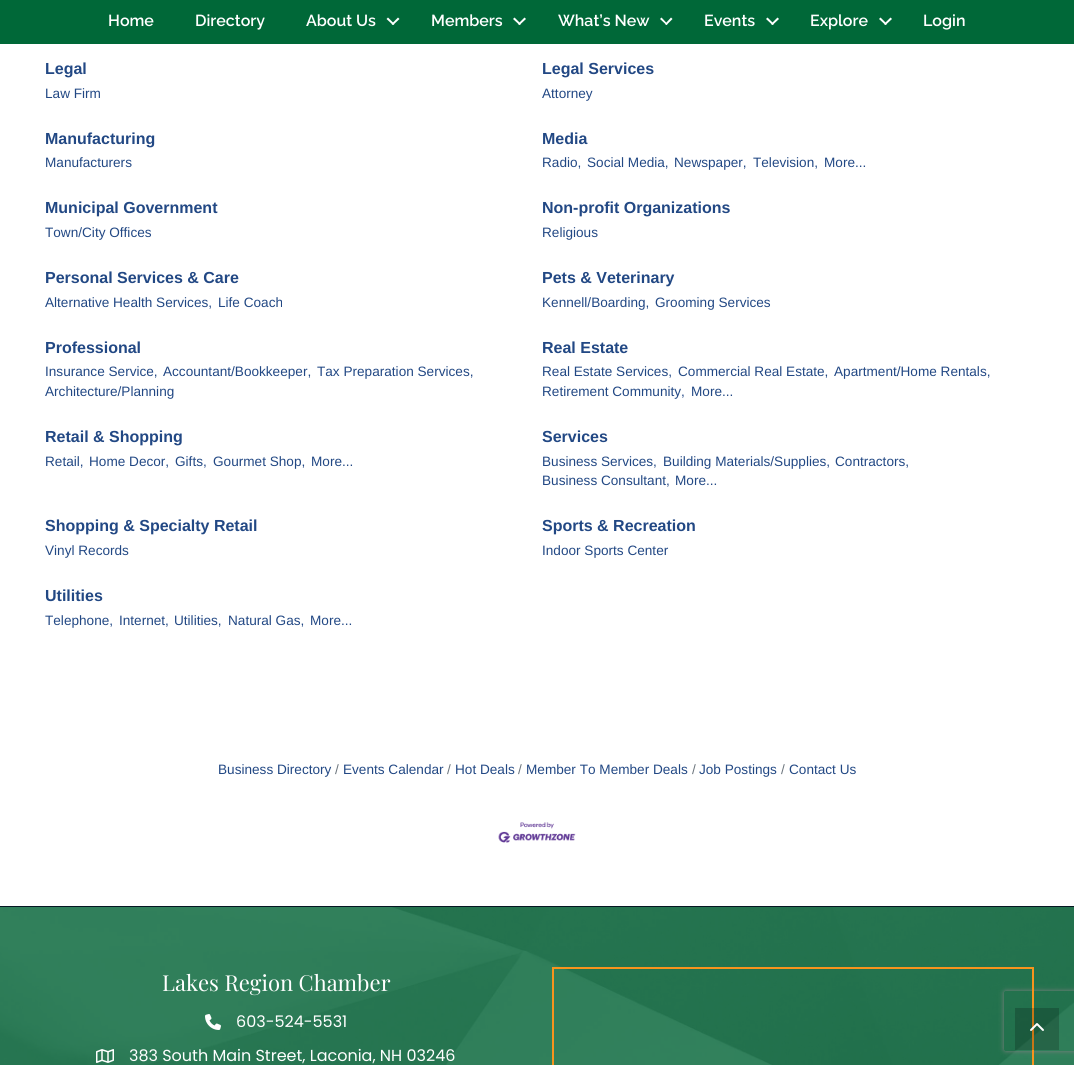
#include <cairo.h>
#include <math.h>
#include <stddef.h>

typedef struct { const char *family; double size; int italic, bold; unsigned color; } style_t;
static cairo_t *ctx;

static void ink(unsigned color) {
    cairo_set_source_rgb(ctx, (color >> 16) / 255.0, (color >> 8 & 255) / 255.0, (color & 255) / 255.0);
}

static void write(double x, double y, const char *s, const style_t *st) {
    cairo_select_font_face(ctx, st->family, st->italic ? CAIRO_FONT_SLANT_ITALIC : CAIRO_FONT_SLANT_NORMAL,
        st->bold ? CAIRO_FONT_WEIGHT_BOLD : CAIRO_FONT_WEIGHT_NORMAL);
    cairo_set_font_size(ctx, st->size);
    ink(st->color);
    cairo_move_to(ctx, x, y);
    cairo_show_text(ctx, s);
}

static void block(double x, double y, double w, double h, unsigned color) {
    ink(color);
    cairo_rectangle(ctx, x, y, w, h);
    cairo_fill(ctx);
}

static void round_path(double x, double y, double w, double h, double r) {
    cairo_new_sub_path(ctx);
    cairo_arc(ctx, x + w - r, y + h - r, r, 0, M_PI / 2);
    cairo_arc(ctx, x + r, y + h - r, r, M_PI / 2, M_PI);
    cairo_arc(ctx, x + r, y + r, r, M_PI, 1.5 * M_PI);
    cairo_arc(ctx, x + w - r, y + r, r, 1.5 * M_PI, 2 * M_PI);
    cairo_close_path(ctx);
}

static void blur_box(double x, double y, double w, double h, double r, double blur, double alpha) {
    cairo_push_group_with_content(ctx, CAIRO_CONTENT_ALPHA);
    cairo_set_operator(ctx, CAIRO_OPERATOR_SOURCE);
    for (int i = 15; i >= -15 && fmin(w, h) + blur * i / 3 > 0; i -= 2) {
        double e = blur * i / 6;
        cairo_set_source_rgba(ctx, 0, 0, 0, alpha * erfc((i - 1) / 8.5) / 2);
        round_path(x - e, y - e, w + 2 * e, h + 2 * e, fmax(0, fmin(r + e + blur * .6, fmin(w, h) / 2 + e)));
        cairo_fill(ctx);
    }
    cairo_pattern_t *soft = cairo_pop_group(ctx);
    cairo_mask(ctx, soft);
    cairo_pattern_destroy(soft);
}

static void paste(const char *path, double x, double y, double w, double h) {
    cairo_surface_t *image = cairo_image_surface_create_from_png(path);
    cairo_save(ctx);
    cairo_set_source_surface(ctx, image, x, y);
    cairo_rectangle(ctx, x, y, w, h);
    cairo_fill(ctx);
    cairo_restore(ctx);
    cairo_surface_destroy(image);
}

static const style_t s1 = {"Raleway Thin", 16, 0, 0, 0xffffff};
static const style_t s2 = {"Liberation Sans", 16, 0, 1, 0x224884};
static const style_t s3 = {"Liberation Sans", 13.6, 0, 0, 0x224884};
static const style_t s4 = {"Liberation Sans", 13.6, 0, 0, 0x6c757d};
static const style_t s5 = {"Playfair Display", 22, 0, 0, 0xffffff};
static const style_t s6 = {"Poppins", 16, 0, 0, 0xffffff};

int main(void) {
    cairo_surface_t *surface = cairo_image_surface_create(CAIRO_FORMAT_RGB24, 1074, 1065);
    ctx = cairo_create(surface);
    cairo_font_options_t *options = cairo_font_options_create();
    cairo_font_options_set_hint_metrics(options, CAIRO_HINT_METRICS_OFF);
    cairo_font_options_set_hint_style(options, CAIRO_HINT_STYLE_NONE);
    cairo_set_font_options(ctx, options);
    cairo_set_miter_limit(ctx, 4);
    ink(0xffffff);
    cairo_paint(ctx);
    block(0, 0, 1074, 44, 0x006838);
    write(108, 26, "Home", &s1);
    write(195, 26, "Directory", &s1);
    write(306, 26, "About Us", &s1);
    cairo_new_path(ctx);
    cairo_move_to(ctx, 398, 17.5);
    cairo_line_to(ctx, 399.5, 19);
    cairo_line_to(ctx, 393, 25);
    cairo_line_to(ctx, 391.5, 24);
    cairo_close_path(ctx);
    cairo_fill(ctx);
    cairo_new_path(ctx);
    cairo_move_to(ctx, 388, 17.5);
    cairo_line_to(ctx, 394.5, 24);
    cairo_line_to(ctx, 393, 25);
    cairo_line_to(ctx, 386.5, 19);
    cairo_close_path(ctx);
    cairo_fill(ctx);
    write(431, 26, "Members", &s1);
    cairo_new_path(ctx);
    cairo_move_to(ctx, 524.5, 17.5);
    cairo_line_to(ctx, 526, 19);
    cairo_line_to(ctx, 519.5, 25);
    cairo_line_to(ctx, 518, 24);
    cairo_close_path(ctx);
    cairo_fill(ctx);
    cairo_new_path(ctx);
    cairo_move_to(ctx, 514.5, 17.5);
    cairo_line_to(ctx, 521, 24);
    cairo_line_to(ctx, 519.5, 25);
    cairo_line_to(ctx, 513, 19);
    cairo_close_path(ctx);
    cairo_fill(ctx);
    write(558, 26, "What’s New", &s1);
    cairo_new_path(ctx);
    cairo_move_to(ctx, 671, 17.5);
    cairo_line_to(ctx, 672.5, 19);
    cairo_line_to(ctx, 666.5, 25);
    cairo_line_to(ctx, 665, 24);
    cairo_close_path(ctx);
    cairo_fill(ctx);
    cairo_new_path(ctx);
    cairo_move_to(ctx, 661.5, 17.5);
    cairo_line_to(ctx, 667.5, 24);
    cairo_line_to(ctx, 666.5, 25);
    cairo_line_to(ctx, 660, 19);
    cairo_close_path(ctx);
    cairo_fill(ctx);
    write(704, 26, "Events", &s1);
    cairo_new_path(ctx);
    cairo_move_to(ctx, 777.5, 17.5);
    cairo_line_to(ctx, 779, 19);
    cairo_line_to(ctx, 772.5, 25);
    cairo_line_to(ctx, 771, 24);
    cairo_close_path(ctx);
    cairo_fill(ctx);
    cairo_new_path(ctx);
    cairo_move_to(ctx, 767.5, 17.5);
    cairo_line_to(ctx, 774, 24);
    cairo_line_to(ctx, 772.5, 25);
    cairo_line_to(ctx, 766, 19);
    cairo_close_path(ctx);
    cairo_fill(ctx);
    write(810, 26, "Explore", &s1);
    cairo_new_path(ctx);
    cairo_move_to(ctx, 890.5, 17.5);
    cairo_line_to(ctx, 892, 19);
    cairo_line_to(ctx, 885.5, 25);
    cairo_line_to(ctx, 884, 24);
    cairo_close_path(ctx);
    cairo_fill(ctx);
    cairo_new_path(ctx);
    cairo_move_to(ctx, 880.5, 17.5);
    cairo_line_to(ctx, 887, 24);
    cairo_line_to(ctx, 885.5, 25);
    cairo_line_to(ctx, 879, 19);
    cairo_close_path(ctx);
    cairo_fill(ctx);
    write(923, 26, "Login", &s1);
    write(45, 74, "Legal", &s2);
    write(45, 98, "Law Firm", &s3);
    write(542, 74, "Legal Services", &s2);
    write(542, 98, "Attorney", &s3);
    write(45, 144, "Manufacturing", &s2);
    write(45, 167, "Manufacturers", &s3);
    write(542, 144, "Media", &s2);
    write(542, 167, "Radio,", &s3);
    write(587, 167, "Social Media,", &s3);
    write(674, 167, "Newspaper,", &s3);
    write(753, 167, "Television,", &s3);
    write(824, 167, "More...", &s3);
    write(45, 213, "Municipal Government", &s2);
    write(45, 237, "Town/City Offices", &s3);
    write(542, 213, "Non-profit Organizations", &s2);
    write(542, 237, "Religious", &s3);
    write(45, 283, "Personal Services & Care", &s2);
    write(45, 307, "Alternative Health Services,", &s3);
    write(218, 307, "Life Coach", &s3);
    write(542, 283, "Pets & Veterinary", &s2);
    write(542, 307, "Kennell/Boarding,", &s3);
    write(655, 307, "Grooming Services", &s3);
    write(45, 353, "Professional", &s2);
    write(45, 376, "Insurance Service,", &s3);
    write(163, 376, "Accountant/Bookkeeper,", &s3);
    write(317, 376, "Tax Preparation Services,", &s3);
    write(45, 396, "Architecture/Planning", &s3);
    write(542, 353, "Real Estate", &s2);
    write(542, 376, "Real Estate Services,", &s3);
    write(678, 376, "Commercial Real Estate,", &s3);
    write(834, 376, "Apartment/Home Rentals,", &s3);
    write(542, 396, "Retirement Community,", &s3);
    write(691, 396, "More...", &s3);
    write(45, 442, "Retail & Shopping", &s2);
    write(45, 466, "Retail,", &s3);
    write(89, 466, "Home Decor,", &s3);
    write(175, 466, "Gifts,", &s3);
    write(213, 466, "Gourmet Shop,", &s3);
    write(311, 466, "More...", &s3);
    write(542, 442, "Services", &s2);
    write(542, 466, "Business Services,", &s3);
    write(663, 466, "Building Materials/Supplies,", &s3);
    write(835, 466, "Contractors,", &s3);
    write(542, 485, "Business Consultant,", &s3);
    write(675, 485, "More...", &s3);
    write(45, 531, "Shopping & Specialty Retail", &s2);
    write(45, 555, "Vinyl Records", &s3);
    write(542, 531, "Sports & Recreation", &s2);
    write(542, 555, "Indoor Sports Center", &s3);
    write(45, 601, "Utilities", &s2);
    write(45, 625, "Telephone,", &s3);
    write(119, 625, "Internet,", &s3);
    write(174, 625, "Utilities,", &s3);
    write(228, 625, "Natural Gas,", &s3);
    write(310, 625, "More...", &s3);
    write(218, 774, "Business Directory", &s3);
    write(335, 774, "/", &s4);
    write(343, 774, "Events Calendar", &s3);
    write(447, 774, "/", &s4);
    write(455, 774, "Hot Deals", &s3);
    write(518, 774, "/", &s4);
    write(526, 774, "Member To Member Deals", &s3);
    write(692, 774, "/", &s4);
    write(699, 774, "Job Postings", &s3);
    write(781, 774, "/", &s4);
    write(789, 774, "Contact Us", &s3);
    paste("pic1.png", 498, 822, 78, 21);
    paste("pic2.png", 0, 907, 1074, 158);
    block(0, 906, 1074, 1, 0x051622);
    write(162, 991, "Lakes Region Chamber", &s5);
    paste("pic3.png", 205, 1014, 16, 16);
    write(236, 1027, "603-524-5531", &s6);
    paste("pic4.png", 96, 1049, 18, 14);
    write(129, 1061, "383 South Main Street, Laconia, NH 03246", &s6);
    cairo_save(ctx);
    cairo_set_fill_rule(ctx, CAIRO_FILL_RULE_EVEN_ODD);
    cairo_new_path(ctx);
    cairo_move_to(ctx, 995, 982);
    cairo_line_to(ctx, 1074, 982);
    cairo_line_to(ctx, 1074, 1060);
    cairo_line_to(ctx, 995, 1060);
    cairo_close_path(ctx);
    cairo_move_to(ctx, 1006, 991);
    cairo_line_to(ctx, 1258, 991);
    cairo_curve_to(ctx, 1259, 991, 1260, 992, 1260, 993);
    cairo_line_to(ctx, 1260, 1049);
    cairo_curve_to(ctx, 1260, 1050, 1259, 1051, 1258, 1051);
    cairo_line_to(ctx, 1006, 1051);
    cairo_curve_to(ctx, 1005, 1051, 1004, 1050, 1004, 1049);
    cairo_line_to(ctx, 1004, 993);
    cairo_curve_to(ctx, 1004, 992, 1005, 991, 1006, 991);
    cairo_close_path(ctx);
    cairo_clip(ctx);
    ink(0x808080);
    blur_box(1004, 991, 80, 60, 2, 2.5, 1);
    cairo_restore(ctx);
    cairo_rectangle(ctx, 553, 968, 480, 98);
    ink(0xf7941d);
    cairo_stroke(ctx);
    cairo_set_source_rgba(ctx, 0, 0, 0, 0.2);
    cairo_rectangle(ctx, 1015, 1008, 44, 42);
    cairo_fill(ctx);
    paste("pic5.png", 1030, 1023, 14, 8);
    cairo_surface_write_to_png(surface, "screenshot.png");
    cairo_font_options_destroy(options);
    cairo_destroy(ctx);
    cairo_surface_destroy(surface);
    return 0;
}
